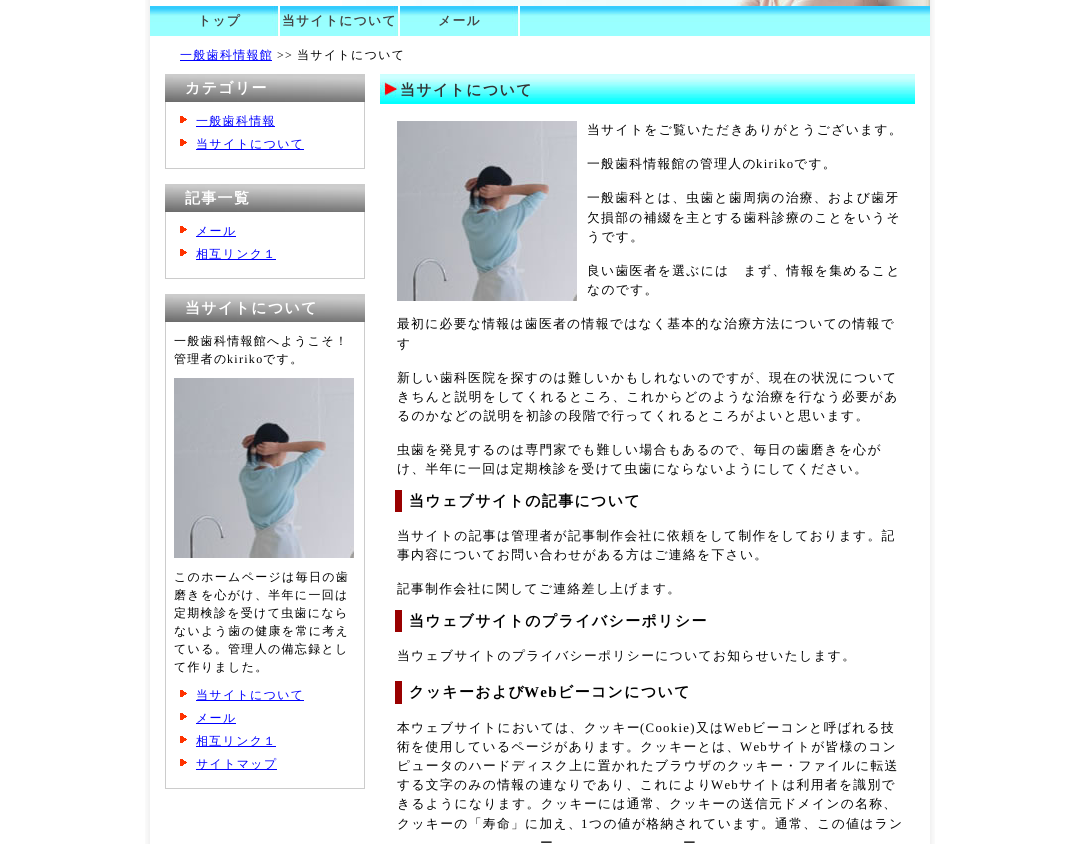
#include <cairo.h>
#include <math.h>
#include <stddef.h>

static cairo_t *ctx;

static void ink(unsigned color) {
    cairo_set_source_rgb(ctx, (color >> 16) / 255.0, (color >> 8 & 255) / 255.0, (color & 255) / 255.0);
}

static void write_spaced(double x, double y, const char *s, double letter, double word) {
    cairo_move_to(ctx, x, y);
    while (*s) {
        char ch[5] = {0};
        int n = 0;
        do ch[n++] = *s++; while ((*s & 0xC0) == 0x80);
        cairo_show_text(ctx, ch);
        cairo_rel_move_to(ctx, letter + word * (*ch == ' '), 0);
    }
}

static void block(double x, double y, double w, double h, unsigned color) {
    ink(color);
    cairo_rectangle(ctx, x, y, w, h);
    cairo_fill(ctx);
}

static void paste(const char *path, double x, double y, double w, double h) {
    cairo_surface_t *image = cairo_image_surface_create_from_png(path);
    cairo_save(ctx);
    cairo_set_source_surface(ctx, image, x, y);
    cairo_rectangle(ctx, x, y, w, h);
    cairo_fill(ctx);
    cairo_restore(ctx);
    cairo_surface_destroy(image);
}

int main(void) {
    cairo_surface_t *surface = cairo_image_surface_create(CAIRO_FORMAT_RGB24, 1079, 844);
    ctx = cairo_create(surface);
    cairo_font_options_t *options = cairo_font_options_create();
    cairo_font_options_set_hint_metrics(options, CAIRO_HINT_METRICS_OFF);
    cairo_font_options_set_hint_style(options, CAIRO_HINT_STYLE_NONE);
    cairo_set_font_options(ctx, options);
    cairo_set_miter_limit(ctx, 4);
    ink(0xffffff);
    cairo_paint(ctx);
    paste("pic1.png", 145, 0, 790, 844);
    paste("pic2.png", 342, 0, 588, 6);
    paste("pic3.png", 150, 6, 780, 30);
    paste("pic4.png", 160, 6, 120, 30);
    cairo_select_font_face(ctx, "WenQuanYi Zen Hei", CAIRO_FONT_SLANT_NORMAL, CAIRO_FONT_WEIGHT_BOLD);
    cairo_set_font_size(ctx, 12.8);
    ink(0x444444);
    write_spaced(198, 25, "トップ", 1.3, 0);
    paste("pic4.png", 280, 6, 120, 30);
    write_spaced(282, 25, "当サイトについて", 1.3, 0);
    paste("pic4.png", 400, 6, 120, 30);
    write_spaced(438, 25, "メール", 1.3, 0);
    block(180, 60, 92, 1, 0x0000ff);
    cairo_select_font_face(ctx, "WenQuanYi Zen Hei Medium", CAIRO_FONT_SLANT_NORMAL, CAIRO_FONT_WEIGHT_NORMAL);
    cairo_set_font_size(ctx, 12);
    write_spaced(180, 59, "一般歯科情報館", 1.3, 0);
    cairo_select_font_face(ctx, "Liberation Serif", CAIRO_FONT_SLANT_NORMAL, CAIRO_FONT_WEIGHT_NORMAL);
    ink(0x000000);
    write_spaced(277, 59, ">>", 1.3, 0);
    cairo_select_font_face(ctx, "WenQuanYi Zen Hei Medium", CAIRO_FONT_SLANT_NORMAL, CAIRO_FONT_WEIGHT_NORMAL);
    write_spaced(297, 59, "当サイトについて", 1.3, 0);
    paste("pic5.png", 165, 74, 200, 28);
    cairo_select_font_face(ctx, "WenQuanYi Zen Hei", CAIRO_FONT_SLANT_NORMAL, CAIRO_FONT_WEIGHT_BOLD);
    cairo_set_font_size(ctx, 15);
    ink(0xffffff);
    write_spaced(185, 93, "カテゴリー", 1.3, 0);
    block(364, 102, 1, 67, 0xcccccc);
    block(165, 168, 200, 1, 0xcccccc);
    block(165, 102, 1, 67, 0xcccccc);
    paste("pic6.png", 180, 116, 7, 7);
    block(196, 126, 79, 1, 0x0000ff);
    cairo_select_font_face(ctx, "WenQuanYi Zen Hei Medium", CAIRO_FONT_SLANT_NORMAL, CAIRO_FONT_WEIGHT_NORMAL);
    cairo_set_font_size(ctx, 12);
    write_spaced(196, 125, "一般歯科情報", 1.3, 0);
    paste("pic6.png", 180, 139, 7, 7);
    block(196, 149, 108, 1, 0x0000ff);
    write_spaced(196, 148, "当サイトについて", 1.3, 0);
    paste("pic5.png", 165, 184, 200, 28);
    cairo_select_font_face(ctx, "WenQuanYi Zen Hei", CAIRO_FONT_SLANT_NORMAL, CAIRO_FONT_WEIGHT_BOLD);
    cairo_set_font_size(ctx, 15);
    ink(0xffffff);
    write_spaced(185, 203, "記事一覧", 1.3, 0);
    block(364, 212, 1, 67, 0xcccccc);
    block(165, 278, 200, 1, 0xcccccc);
    block(165, 212, 1, 67, 0xcccccc);
    paste("pic6.png", 180, 226, 7, 7);
    cairo_select_font_face(ctx, "WenQuanYi Zen Hei Medium", CAIRO_FONT_SLANT_NORMAL, CAIRO_FONT_WEIGHT_NORMAL);
    cairo_set_font_size(ctx, 12);
    ink(0x0000ff);
    write_spaced(196, 235, "メール", 1.3, 0);
    block(196, 236, 40, 1, 0x0000ff);
    paste("pic6.png", 180, 249, 7, 7);
    block(196, 259, 80, 1, 0x0000ff);
    write_spaced(196, 258, "相互リンク１", 1.3, 0);
    paste("pic5.png", 165, 294, 200, 28);
    cairo_select_font_face(ctx, "WenQuanYi Zen Hei", CAIRO_FONT_SLANT_NORMAL, CAIRO_FONT_WEIGHT_BOLD);
    cairo_set_font_size(ctx, 15);
    ink(0xffffff);
    write_spaced(185, 313, "当サイトについて", 1.3, 0);
    block(364, 322, 1, 467, 0xcccccc);
    block(165, 788, 200, 1, 0xcccccc);
    block(165, 322, 1, 467, 0xcccccc);
    cairo_select_font_face(ctx, "WenQuanYi Zen Hei Medium", CAIRO_FONT_SLANT_NORMAL, CAIRO_FONT_WEIGHT_NORMAL);
    cairo_set_font_size(ctx, 12);
    ink(0x000000);
    write_spaced(174, 345, "一般歯科情報館へようこそ！", 1.3, 0);
    write_spaced(174, 363, "管理者の", 1.3, 0);
    cairo_select_font_face(ctx, "Liberation Serif", CAIRO_FONT_SLANT_NORMAL, CAIRO_FONT_WEIGHT_NORMAL);
    write_spaced(227, 363, "kiriko", 1.3, 0);
    cairo_select_font_face(ctx, "WenQuanYi Zen Hei Medium", CAIRO_FONT_SLANT_NORMAL, CAIRO_FONT_WEIGHT_NORMAL);
    write_spaced(263, 363, "です。", 1.3, 0);
    paste("pic7.png", 174, 378, 180, 180);
    write_spaced(174, 581, "このホームページは毎日の歯", 1.3, 0);
    write_spaced(174, 599, "磨きを心がけ、半年に一回は", 1.3, 0);
    write_spaced(174, 617, "定期検診を受けて虫歯になら", 1.3, 0);
    write_spaced(174, 635, "ないよう歯の健康を常に考え", 1.3, 0);
    write_spaced(174, 653, "ている。管理人の備忘録とし", 1.3, 0);
    write_spaced(174, 671, "て作りました。", 1.3, 0);
    paste("pic6.png", 180, 690, 7, 7);
    block(196, 700, 108, 1, 0x0000ff);
    write_spaced(196, 699, "当サイトについて", 1.3, 0);
    paste("pic6.png", 180, 713, 7, 7);
    write_spaced(196, 722, "メール", 1.3, 0);
    block(196, 723, 40, 1, 0x0000ff);
    paste("pic6.png", 180, 736, 7, 7);
    block(196, 746, 80, 1, 0x0000ff);
    write_spaced(196, 745, "相互リンク１", 1.3, 0);
    paste("pic6.png", 180, 759, 7, 7);
    block(196, 769, 81, 1, 0x0000ff);
    write_spaced(196, 768, "サイトマップ", 1.3, 0);
    paste("pic8.png", 380, 74, 535, 30);
    cairo_select_font_face(ctx, "WenQuanYi Zen Hei", CAIRO_FONT_SLANT_NORMAL, CAIRO_FONT_WEIGHT_BOLD);
    cairo_set_font_size(ctx, 15);
    ink(0x333333);
    write_spaced(400, 95, "当サイトについて", 1.3, 0);
    paste("pic7.png", 397, 121, 180, 180);
    cairo_select_font_face(ctx, "WenQuanYi Zen Hei Medium", CAIRO_FONT_SLANT_NORMAL, CAIRO_FONT_WEIGHT_NORMAL);
    cairo_set_font_size(ctx, 12.8);
    ink(0x000000);
    write_spaced(587, 134, "当サイトをご覧いただきありがとうございます。", 1.3, 0);
    write_spaced(587, 168, "一般歯科情報館の管理人の", 1.3, 0);
    cairo_select_font_face(ctx, "Liberation Serif", CAIRO_FONT_SLANT_NORMAL, CAIRO_FONT_WEIGHT_NORMAL);
    write_spaced(756, 168, "kiriko", 1.3, 0);
    cairo_select_font_face(ctx, "WenQuanYi Zen Hei Medium", CAIRO_FONT_SLANT_NORMAL, CAIRO_FONT_WEIGHT_NORMAL);
    write_spaced(794, 168, "です。", 1.3, 0);
    write_spaced(587, 202, "一般歯科とは、虫歯と歯周病の治療、および歯牙", 1.3, 0);
    write_spaced(587, 222, "欠損部の補綴を主とする歯科診療のことをいうそ", 1.3, 0);
    write_spaced(587, 241, "うです。", 1.3, 0);
    write_spaced(587, 275, "良い歯医者を選ぶには　まず、情報を集めること", 1.3, 0);
    write_spaced(587, 294, "なのです。", 1.3, 0);
    write_spaced(397, 328, "最初に必要な情報は歯医者の情報ではなく基本的な治療方法についての情報で", 1.3, 0);
    write_spaced(397, 348, "す", 1.3, 0);
    write_spaced(397, 382, "新しい歯科医院を探すのは難しいかもしれないのですが、現在の状況について", 1.3, 0);
    write_spaced(397, 401, "きちんと説明をしてくれるところ、これからどのような治療を行なう必要があ", 1.3, 0);
    write_spaced(397, 420, "るのかなどの説明を初診の段階で行ってくれるところがよいと思います。", 1.3, 0);
    write_spaced(397, 454, "虫歯を発見するのは専門家でも難しい場合もあるので、毎日の歯磨きを心が", 1.3, 0);
    write_spaced(397, 473, "け、半年に一回は定期検診を受けて虫歯にならないようにしてください。", 1.3, 0);
    block(395, 490, 7, 22, 0x990000);
    cairo_select_font_face(ctx, "WenQuanYi Zen Hei", CAIRO_FONT_SLANT_NORMAL, CAIRO_FONT_WEIGHT_BOLD);
    cairo_set_font_size(ctx, 15);
    ink(0x000000);
    write_spaced(409, 506, "当ウェブサイトの記事について", 1.3, 0);
    cairo_select_font_face(ctx, "WenQuanYi Zen Hei Medium", CAIRO_FONT_SLANT_NORMAL, CAIRO_FONT_WEIGHT_NORMAL);
    cairo_set_font_size(ctx, 12.8);
    write_spaced(397, 540, "当サイトの記事は管理者が記事制作会社に依頼をして制作をしております。記", 1.3, 0);
    write_spaced(397, 559, "事内容についてお問い合わせがある方はご連絡を下さい。", 1.3, 0);
    write_spaced(397, 593, "記事制作会社に関してご連絡差し上げます。", 1.3, 0);
    block(395, 610, 7, 22, 0x990000);
    cairo_select_font_face(ctx, "WenQuanYi Zen Hei", CAIRO_FONT_SLANT_NORMAL, CAIRO_FONT_WEIGHT_BOLD);
    cairo_set_font_size(ctx, 15);
    ink(0x000000);
    write_spaced(409, 626, "当ウェブサイトのプライバシーポリシー", 1.3, 0);
    cairo_select_font_face(ctx, "WenQuanYi Zen Hei Medium", CAIRO_FONT_SLANT_NORMAL, CAIRO_FONT_WEIGHT_NORMAL);
    cairo_set_font_size(ctx, 12.8);
    write_spaced(397, 660, "当ウェブサイトのプライバシーポリシーについてお知らせいたします。", 1.3, 0);
    block(395, 681, 7, 23, 0x990000);
    cairo_select_font_face(ctx, "WenQuanYi Zen Hei", CAIRO_FONT_SLANT_NORMAL, CAIRO_FONT_WEIGHT_BOLD);
    cairo_set_font_size(ctx, 15);
    ink(0x000000);
    write_spaced(409, 697, "クッキーおよび", 1.3, 0);
    cairo_select_font_face(ctx, "Liberation Serif", CAIRO_FONT_SLANT_NORMAL, CAIRO_FONT_WEIGHT_BOLD);
    write_spaced(524, 697, "Web", 1.3, 0);
    cairo_select_font_face(ctx, "WenQuanYi Zen Hei", CAIRO_FONT_SLANT_NORMAL, CAIRO_FONT_WEIGHT_BOLD);
    write_spaced(558, 697, "ビーコンについて", 1.3, 0);
    cairo_select_font_face(ctx, "WenQuanYi Zen Hei Medium", CAIRO_FONT_SLANT_NORMAL, CAIRO_FONT_WEIGHT_NORMAL);
    cairo_set_font_size(ctx, 12.8);
    write_spaced(397, 732, "本ウェブサイトにおいては、クッキー", 1.3, 0);
    cairo_select_font_face(ctx, "Liberation Serif", CAIRO_FONT_SLANT_NORMAL, CAIRO_FONT_WEIGHT_NORMAL);
    write_spaced(640, 732, "(Cookie)", 1.3, 0);
    cairo_select_font_face(ctx, "WenQuanYi Zen Hei Medium", CAIRO_FONT_SLANT_NORMAL, CAIRO_FONT_WEIGHT_NORMAL);
    write_spaced(696, 732, "又は", 1.3, 0);
    cairo_select_font_face(ctx, "Liberation Serif", CAIRO_FONT_SLANT_NORMAL, CAIRO_FONT_WEIGHT_NORMAL);
    write_spaced(724, 732, "Web", 1.3, 0);
    cairo_select_font_face(ctx, "WenQuanYi Zen Hei Medium", CAIRO_FONT_SLANT_NORMAL, CAIRO_FONT_WEIGHT_NORMAL);
    write_spaced(752, 732, "ビーコンと呼ばれる技", 1.3, 0);
    write_spaced(397, 751, "術を使用しているページがあります。クッキーとは、", 1.3, 0);
    cairo_select_font_face(ctx, "Liberation Serif", CAIRO_FONT_SLANT_NORMAL, CAIRO_FONT_WEIGHT_NORMAL);
    write_spaced(740, 751, "Web", 1.3, 0);
    cairo_select_font_face(ctx, "WenQuanYi Zen Hei Medium", CAIRO_FONT_SLANT_NORMAL, CAIRO_FONT_WEIGHT_NORMAL);
    write_spaced(768, 751, "サイトが皆様のコン", 1.3, 0);
    write_spaced(397, 770, "ピュータのハードディスク上に置かれたブラウザのクッキー・ファイルに転送", 1.3, 0);
    write_spaced(397, 789, "する文字のみの情報の連なりであり、これにより", 1.3, 0);
    cairo_select_font_face(ctx, "Liberation Serif", CAIRO_FONT_SLANT_NORMAL, CAIRO_FONT_WEIGHT_NORMAL);
    write_spaced(711, 789, "Web", 1.3, 0);
    cairo_select_font_face(ctx, "WenQuanYi Zen Hei Medium", CAIRO_FONT_SLANT_NORMAL, CAIRO_FONT_WEIGHT_NORMAL);
    write_spaced(739, 789, "サイトは利用者を識別で", 1.3, 0);
    write_spaced(397, 808, "きるようになります。クッキーには通常、クッキーの送信元ドメインの名称、", 1.3, 0);
    write_spaced(397, 828, "クッキーの「寿命」に加え、", 1.3, 0);
    cairo_select_font_face(ctx, "Liberation Serif", CAIRO_FONT_SLANT_NORMAL, CAIRO_FONT_WEIGHT_NORMAL);
    write_spaced(581, 828, "1", 1.3, 0);
    cairo_select_font_face(ctx, "WenQuanYi Zen Hei Medium", CAIRO_FONT_SLANT_NORMAL, CAIRO_FONT_WEIGHT_NORMAL);
    write_spaced(589, 828, "つの値が格納されています。通常、この値はラン", 1.3, 0);
    write_spaced(540, 847, "ー", 1.3, 0);
    write_spaced(683, 847, "ー", 1.3, 0);
    cairo_surface_write_to_png(surface, "screenshot.png");
    cairo_font_options_destroy(options);
    cairo_destroy(ctx);
    cairo_surface_destroy(surface);
    return 0;
}
